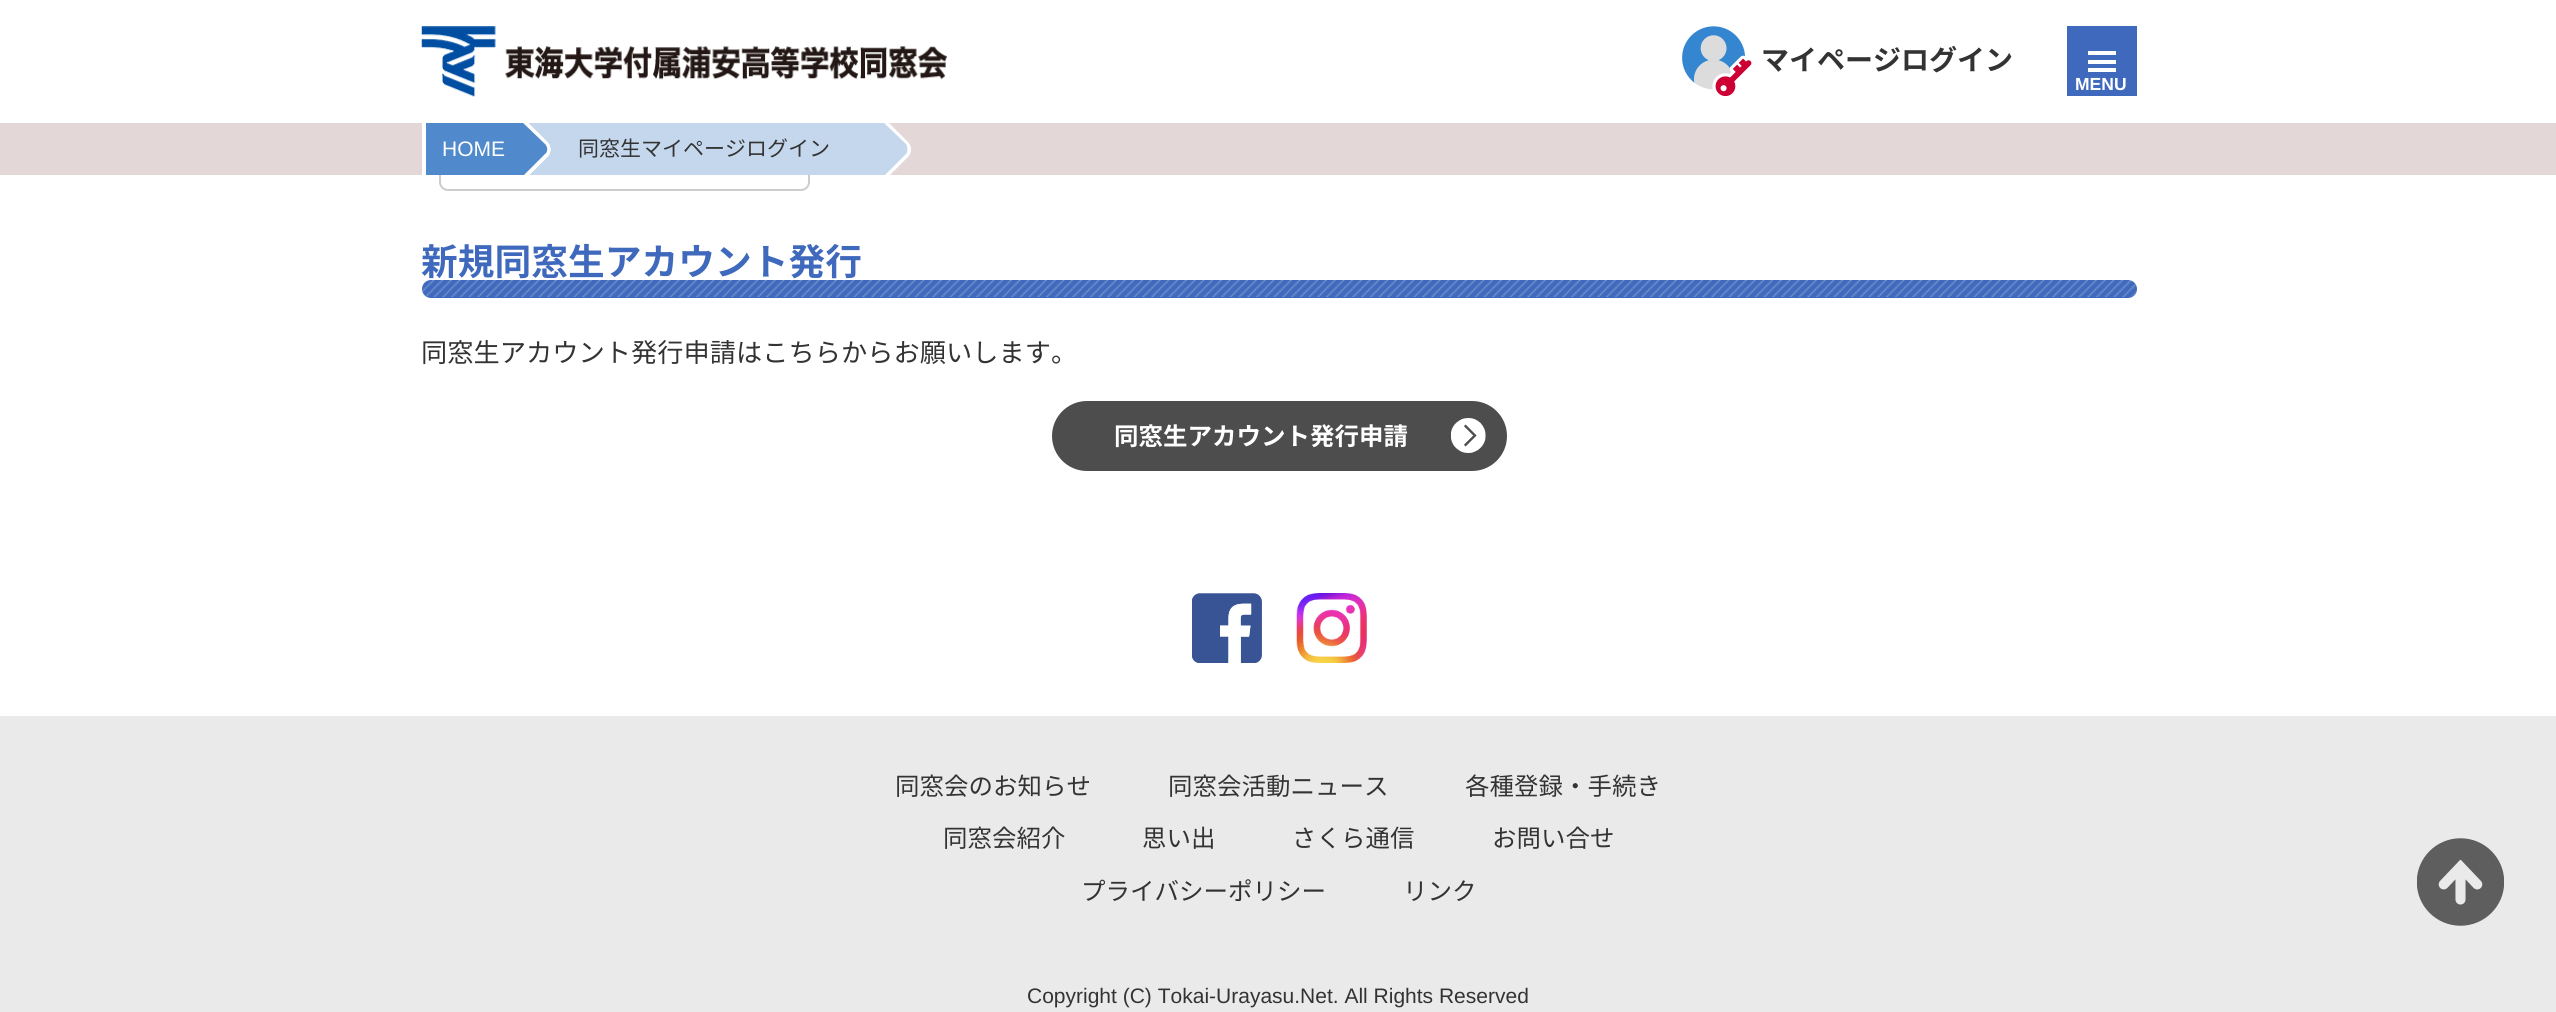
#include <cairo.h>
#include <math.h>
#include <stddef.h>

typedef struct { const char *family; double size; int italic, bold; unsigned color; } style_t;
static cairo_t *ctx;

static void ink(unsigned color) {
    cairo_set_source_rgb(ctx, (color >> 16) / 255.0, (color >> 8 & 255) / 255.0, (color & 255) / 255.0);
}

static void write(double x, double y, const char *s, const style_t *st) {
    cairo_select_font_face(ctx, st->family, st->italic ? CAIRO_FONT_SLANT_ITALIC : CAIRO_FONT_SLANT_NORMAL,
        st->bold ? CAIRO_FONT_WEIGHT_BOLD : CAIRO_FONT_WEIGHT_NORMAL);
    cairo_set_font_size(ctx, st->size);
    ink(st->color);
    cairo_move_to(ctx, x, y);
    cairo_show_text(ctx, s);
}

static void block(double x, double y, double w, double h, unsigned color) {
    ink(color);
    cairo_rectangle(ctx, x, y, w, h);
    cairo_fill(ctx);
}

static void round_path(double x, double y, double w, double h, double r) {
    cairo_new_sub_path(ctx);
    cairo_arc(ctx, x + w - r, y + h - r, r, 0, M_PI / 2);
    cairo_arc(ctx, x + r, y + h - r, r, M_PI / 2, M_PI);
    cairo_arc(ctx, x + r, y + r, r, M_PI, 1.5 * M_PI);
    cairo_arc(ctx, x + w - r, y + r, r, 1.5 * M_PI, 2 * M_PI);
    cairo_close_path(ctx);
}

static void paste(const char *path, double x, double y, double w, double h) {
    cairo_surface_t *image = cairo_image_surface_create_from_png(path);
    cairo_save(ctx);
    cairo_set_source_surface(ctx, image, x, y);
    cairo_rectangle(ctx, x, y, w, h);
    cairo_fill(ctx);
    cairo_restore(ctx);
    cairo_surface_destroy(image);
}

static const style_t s1 = {"Noto Sans JP", 28, 0, 1, 0x333333};
static const style_t s2 = {"Liberation Sans", 17.5, 0, 1, 0xffffff};
static const style_t s3 = {"Liberation Sans", 21, 0, 0, 0xffffff};
static const style_t s4 = {"Noto Sans JP", 21, 0, 0, 0x333333};
static const style_t s5 = {"Noto Sans JP", 36.75, 0, 1, 0x3f69bc};
static const style_t s6 = {"Noto Sans JP", 26.25, 0, 0, 0x333333};
static const style_t s7 = {"Noto Sans JP", 24.5, 0, 1, 0xffffff};
static const style_t s8 = {"Noto Sans JP", 24.5, 0, 0, 0x333333};
static const style_t s9 = {"Liberation Sans", 21, 0, 0, 0x333333};

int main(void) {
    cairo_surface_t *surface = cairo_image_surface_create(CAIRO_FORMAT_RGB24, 2556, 1012);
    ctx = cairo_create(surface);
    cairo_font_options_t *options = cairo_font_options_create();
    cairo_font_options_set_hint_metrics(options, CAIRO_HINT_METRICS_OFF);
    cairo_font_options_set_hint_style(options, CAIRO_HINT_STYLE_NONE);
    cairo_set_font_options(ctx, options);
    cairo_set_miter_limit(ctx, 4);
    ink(0xffffff);
    cairo_paint(ctx);
    round_path(440, 90, 369, 100, 8);
    ink(0xcccccc);
    cairo_stroke(ctx);
    block(439, 89, 371, 34, 0xffffff);
    paste("pic1.png", 421, 26, 526, 71);
    paste("pic2.png", 1682, 26, 70, 70);
    write(1761, 70, "マイページログイン", &s1);
    block(2067, 26, 70, 70, 0x3f69bc);
    block(2088, 51, 28, 4, 0xffffff);
    block(2088, 60, 28, 4, 0xffffff);
    block(2088, 68, 28, 4, 0xffffff);
    write(2075, 90, "MENU", &s2);
    block(0, 123, 2556, 52, 0xe3d7d7);
    block(426, 123, 80, 52, 0x508acc);
    block(422, 123, 4, 52, 0xffffff);
    write(442, 156, "HOME", &s3);
    block(529, 123, 334, 52, 0xc4d7ed);
    cairo_save(ctx);
    cairo_rectangle(ctx, 506, 123, 408, 52);
    cairo_clip(ctx);
    ink(0x508acc);
    cairo_new_path(ctx);
    cairo_move_to(ctx, 483, 142);
    cairo_line_to(ctx, 508, 117);
    cairo_curve_to(ctx, 512, 113, 519, 113, 523, 117);
    cairo_line_to(ctx, 548, 142);
    cairo_curve_to(ctx, 552, 146, 552, 153, 548, 157);
    cairo_line_to(ctx, 523, 182);
    cairo_curve_to(ctx, 519, 186, 512, 186, 508, 182);
    cairo_line_to(ctx, 483, 157);
    cairo_curve_to(ctx, 479, 153, 479, 146, 483, 142);
    cairo_close_path(ctx);
    cairo_fill(ctx);
    ink(0xffffff);
    cairo_set_fill_rule(ctx, CAIRO_FILL_RULE_EVEN_ODD);
    cairo_new_path(ctx);
    cairo_move_to(ctx, 483, 142);
    cairo_line_to(ctx, 508, 117);
    cairo_curve_to(ctx, 512, 113, 519, 113, 523, 117);
    cairo_line_to(ctx, 548, 142);
    cairo_curve_to(ctx, 552, 146, 552, 153, 548, 157);
    cairo_line_to(ctx, 523, 182);
    cairo_curve_to(ctx, 519, 186, 512, 186, 508, 182);
    cairo_line_to(ctx, 483, 157);
    cairo_curve_to(ctx, 479, 153, 479, 146, 483, 142);
    cairo_close_path(ctx);
    cairo_move_to(ctx, 483, 142);
    cairo_line_to(ctx, 508, 117);
    cairo_curve_to(ctx, 511, 114, 516, 116, 520, 120);
    cairo_line_to(ctx, 545, 144);
    cairo_curve_to(ctx, 548, 147, 548, 152, 545, 154);
    cairo_line_to(ctx, 520, 179);
    cairo_curve_to(ctx, 516, 183, 511, 184, 508, 182);
    cairo_line_to(ctx, 483, 157);
    cairo_curve_to(ctx, 479, 153, 479, 146, 483, 142);
    cairo_close_path(ctx);
    cairo_fill(ctx);
    cairo_restore(ctx);
    write(578, 156, "同窓生マイページログイン", &s4);
    cairo_save(ctx);
    cairo_rectangle(ctx, 506, 123, 408, 52);
    cairo_clip(ctx);
    ink(0xc4d7ed);
    cairo_new_path(ctx);
    cairo_move_to(ctx, 844, 142);
    cairo_line_to(ctx, 868, 117);
    cairo_curve_to(ctx, 873, 113, 879, 113, 883, 117);
    cairo_line_to(ctx, 908, 142);
    cairo_curve_to(ctx, 912, 146, 912, 153, 908, 157);
    cairo_line_to(ctx, 883, 182);
    cairo_curve_to(ctx, 879, 186, 873, 186, 868, 182);
    cairo_line_to(ctx, 844, 157);
    cairo_curve_to(ctx, 840, 153, 840, 146, 844, 142);
    cairo_close_path(ctx);
    cairo_fill(ctx);
    ink(0xffffff);
    cairo_set_fill_rule(ctx, CAIRO_FILL_RULE_EVEN_ODD);
    cairo_new_path(ctx);
    cairo_move_to(ctx, 844, 142);
    cairo_line_to(ctx, 868, 117);
    cairo_curve_to(ctx, 873, 113, 879, 113, 883, 117);
    cairo_line_to(ctx, 908, 142);
    cairo_curve_to(ctx, 912, 146, 912, 153, 908, 157);
    cairo_line_to(ctx, 883, 182);
    cairo_curve_to(ctx, 879, 186, 873, 186, 868, 182);
    cairo_line_to(ctx, 844, 157);
    cairo_curve_to(ctx, 840, 153, 840, 146, 844, 142);
    cairo_close_path(ctx);
    cairo_move_to(ctx, 844, 142);
    cairo_line_to(ctx, 868, 117);
    cairo_curve_to(ctx, 871, 114, 877, 116, 881, 120);
    cairo_line_to(ctx, 906, 144);
    cairo_curve_to(ctx, 908, 147, 908, 152, 906, 154);
    cairo_line_to(ctx, 881, 179);
    cairo_curve_to(ctx, 877, 183, 871, 184, 868, 182);
    cairo_line_to(ctx, 844, 157);
    cairo_curve_to(ctx, 840, 153, 840, 146, 844, 142);
    cairo_close_path(ctx);
    cairo_fill(ctx);
    cairo_restore(ctx);
    write(421, 275, "新規同窓生アカウント発行", &s5);
    round_path(422, 280, 1715, 18, 9);
    cairo_fill(ctx);
    paste("pic3.png", 422, 280, 1714, 17);
    write(421, 362, "同窓生アカウント発行申請はこちらからお願いします。", &s6);
    ink(0x4d4d4d);
    round_path(1052, 401, 455, 70, 35);
    cairo_fill(ctx);
    write(1114, 445, "同窓生アカウント発行申請", &s7);
    paste("pic4.png", 1451, 418, 35, 35);
    paste("pic5.png", 1192, 593, 70, 70);
    paste("pic6.png", 1296, 593, 71, 70);
    block(0, 716, 2556, 296, 0xeaeaea);
    write(895, 795, "同窓会のお知らせ", &s8);
    write(1168, 795, "同窓会活動ニュース", &s8);
    write(1465, 795, "各種登録・手続き", &s8);
    write(943, 847, "同窓会紹介", &s8);
    write(1142, 847, "思い出", &s8);
    write(1292, 847, "さくら通信", &s8);
    write(1492, 847, "お問い合せ", &s8);
    write(1081, 900, "プライバシーポリシー", &s8);
    write(1403, 900, "リンク", &s8);
    write(1027, 1003, "Copyright (C) Tokai-Urayasu.Net. All Rights Reserved", &s9);
    paste("pic7.png", 2417, 838, 87, 88);
    cairo_surface_write_to_png(surface, "screenshot.png");
    cairo_font_options_destroy(options);
    cairo_destroy(ctx);
    cairo_surface_destroy(surface);
    return 0;
}
